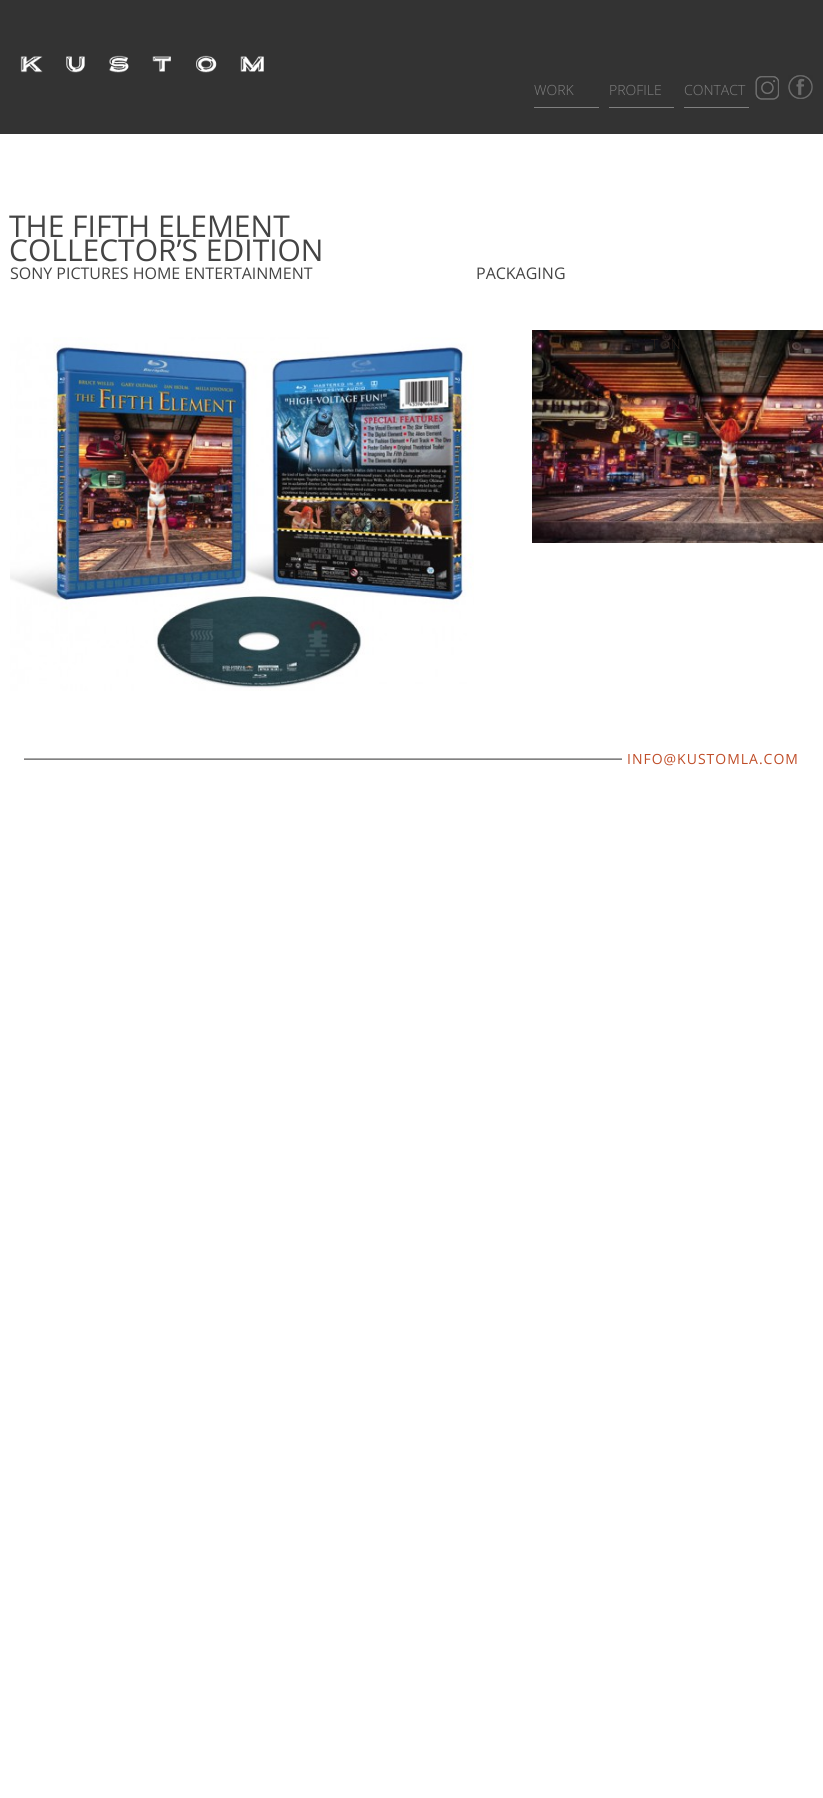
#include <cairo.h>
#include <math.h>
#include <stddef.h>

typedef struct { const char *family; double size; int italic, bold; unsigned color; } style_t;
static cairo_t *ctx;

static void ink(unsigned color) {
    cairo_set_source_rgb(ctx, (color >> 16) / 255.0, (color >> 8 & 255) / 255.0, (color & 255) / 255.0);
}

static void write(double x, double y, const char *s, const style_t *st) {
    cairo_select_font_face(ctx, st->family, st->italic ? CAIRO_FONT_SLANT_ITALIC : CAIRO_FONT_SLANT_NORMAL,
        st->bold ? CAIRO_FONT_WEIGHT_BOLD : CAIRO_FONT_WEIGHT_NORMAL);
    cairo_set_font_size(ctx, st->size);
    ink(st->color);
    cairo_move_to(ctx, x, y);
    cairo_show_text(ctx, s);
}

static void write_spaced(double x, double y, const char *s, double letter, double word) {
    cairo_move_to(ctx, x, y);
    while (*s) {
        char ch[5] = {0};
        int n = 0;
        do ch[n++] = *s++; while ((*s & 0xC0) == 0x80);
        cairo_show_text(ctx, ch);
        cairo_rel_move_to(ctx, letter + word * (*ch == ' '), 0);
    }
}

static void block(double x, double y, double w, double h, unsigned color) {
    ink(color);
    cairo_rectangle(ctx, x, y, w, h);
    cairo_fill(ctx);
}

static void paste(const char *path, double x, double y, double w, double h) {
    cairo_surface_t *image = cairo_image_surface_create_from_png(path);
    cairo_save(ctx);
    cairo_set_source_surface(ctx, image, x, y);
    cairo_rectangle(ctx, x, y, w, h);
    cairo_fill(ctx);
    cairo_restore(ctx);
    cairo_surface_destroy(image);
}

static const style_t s1 = {"Open Sans Light", 14, 0, 0, 0x808080};
static const style_t s2 = {"Open Sans", 30, 0, 0, 0x444444};
static const style_t s3 = {"Open Sans", 16, 0, 0, 0x444444};
static const style_t s4 = {"Open Sans Light", 14, 0, 0, 0x2e231d};

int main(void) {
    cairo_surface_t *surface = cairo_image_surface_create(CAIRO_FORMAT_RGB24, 823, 1798);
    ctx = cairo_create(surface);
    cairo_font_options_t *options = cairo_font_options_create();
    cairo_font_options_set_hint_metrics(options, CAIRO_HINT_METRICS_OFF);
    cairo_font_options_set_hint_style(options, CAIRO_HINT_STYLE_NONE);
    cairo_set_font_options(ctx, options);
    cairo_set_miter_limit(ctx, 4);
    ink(0xffffff);
    cairo_paint(ctx);
    block(0, 0, 823, 134, 0x333333);
    paste("pic1.png", 20, 55, 244, 18);
    block(534, 107, 65, 1, 0x808080);
    write(534, 95, "WORK", &s1);
    block(609, 107, 65, 1, 0x808080);
    write(609, 95, "PROFILE", &s1);
    block(684, 107, 65, 1, 0x808080);
    write(684, 95, "CONTACT", &s1);
    paste("pic2.png", 755, 76, 24, 24);
    paste("pic3.png", 788, 75, 25, 24);
    write(9, 237, "THE FIFTH ELEMENT", &s2);
    write(9, 261, "COLLECTOR’S EDITION", &s2);
    write(10, 279, "SONY PICTURES HOME ENTERTAINMENT", &s3);
    write(476, 279, "PACKAGING", &s3);
    paste("pic4.png", 10, 337, 464, 354);
    paste("pic5.png", 532, 330, 291, 213);
    write(651, 349, "T AN", &s4);
    paste("pic6.png", 24, 758, 598, 2);
    cairo_select_font_face(ctx, "Open Sans", CAIRO_FONT_SLANT_NORMAL, CAIRO_FONT_WEIGHT_NORMAL);
    ink(0xbf4d28);
    write_spaced(627, 764, "INFO@KUSTOMLA.COM", 1, 0);
    cairo_surface_write_to_png(surface, "screenshot.png");
    cairo_font_options_destroy(options);
    cairo_destroy(ctx);
    cairo_surface_destroy(surface);
    return 0;
}
